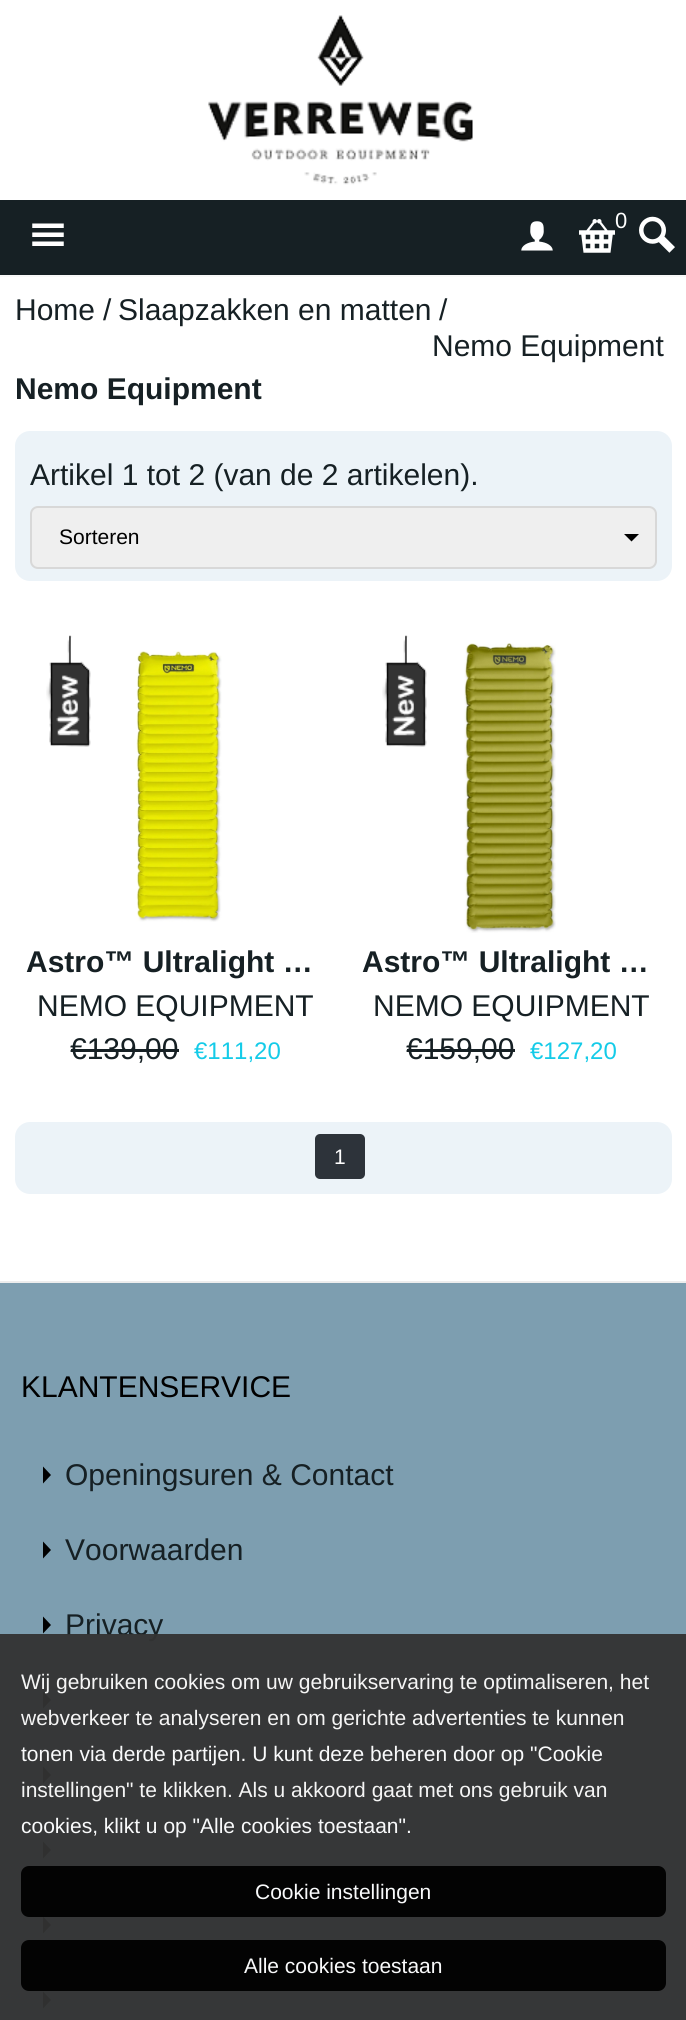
#include <cairo.h>
#include <math.h>
#include <stddef.h>

typedef struct { const char *family; double size; int italic, bold; unsigned color; } style_t;
static cairo_t *ctx;

static void ink(unsigned color) {
    cairo_set_source_rgb(ctx, (color >> 16) / 255.0, (color >> 8 & 255) / 255.0, (color & 255) / 255.0);
}

static void write(double x, double y, const char *s, const style_t *st) {
    cairo_select_font_face(ctx, st->family, st->italic ? CAIRO_FONT_SLANT_ITALIC : CAIRO_FONT_SLANT_NORMAL,
        st->bold ? CAIRO_FONT_WEIGHT_BOLD : CAIRO_FONT_WEIGHT_NORMAL);
    cairo_set_font_size(ctx, st->size);
    ink(st->color);
    cairo_move_to(ctx, x, y);
    cairo_show_text(ctx, s);
}

static void block(double x, double y, double w, double h, unsigned color) {
    ink(color);
    cairo_rectangle(ctx, x, y, w, h);
    cairo_fill(ctx);
}

static void round_path(double x, double y, double w, double h, double r) {
    cairo_new_sub_path(ctx);
    cairo_arc(ctx, x + w - r, y + h - r, r, 0, M_PI / 2);
    cairo_arc(ctx, x + r, y + h - r, r, M_PI / 2, M_PI);
    cairo_arc(ctx, x + r, y + r, r, M_PI, 1.5 * M_PI);
    cairo_arc(ctx, x + w - r, y + r, r, 1.5 * M_PI, 2 * M_PI);
    cairo_close_path(ctx);
}

static void paste(const char *path, double x, double y, double w, double h) {
    cairo_surface_t *image = cairo_image_surface_create_from_png(path);
    cairo_save(ctx);
    cairo_set_source_surface(ctx, image, x, y);
    cairo_rectangle(ctx, x, y, w, h);
    cairo_fill(ctx);
    cairo_restore(ctx);
    cairo_surface_destroy(image);
}

static const style_t s1 = {"Liberation Sans", 22, 0, 0, 0xffffff};
static const style_t s2 = {"Liberation Sans", 30, 0, 0, 0x162024};
static const style_t s3 = {"Liberation Sans", 30, 0, 1, 0x162024};
static const style_t s4 = {"Liberation Sans", 21, 0, 0, 0x000000};
static const style_t s5 = {"Liberation Sans", 24, 0, 0, 0x14cbe8};
static const style_t s6 = {"Liberation Sans", 21, 0, 0, 0xffffff};
static const style_t s7 = {"Liberation Sans", 30, 0, 0, 0x000000};
static const style_t s8 = {"Liberation Sans", 21, 0, 0, 0xf5f5f5};
static const style_t s9 = {"Liberation Sans", 21, 0, 0, 0xf9fafb};

int main(void) {
    cairo_surface_t *surface = cairo_image_surface_create(CAIRO_FORMAT_RGB24, 686, 2020);
    ctx = cairo_create(surface);
    cairo_font_options_t *options = cairo_font_options_create();
    cairo_font_options_set_hint_metrics(options, CAIRO_HINT_METRICS_OFF);
    cairo_font_options_set_hint_style(options, CAIRO_HINT_STYLE_NONE);
    cairo_set_font_options(ctx, options);
    cairo_set_miter_limit(ctx, 4);
    ink(0xffffff);
    cairo_paint(ctx);
    paste("pic1.png", 208, 15, 265, 170);
    block(0, 275, 686, 2, 0xf8f8f8);
    block(0, 200, 686, 75, 0x162024);
    paste("pic2.png", 32, 223, 32, 23);
    paste("pic3.png", 521, 221, 32, 30);
    paste("pic4.png", 579, 219, 36, 34);
    write(615, 228, "0", &s1);
    paste("pic5.png", 639, 216, 36, 37);
    write(15, 320, "Home", &s2);
    write(103, 320, "/", &s2);
    write(118, 320, "Slaapzakken en matten", &s2);
    write(439, 320, "/", &s2);
    write(432, 356, "Nemo Equipment", &s2);
    write(15, 399, "Nemo Equipment", &s3);
    ink(0xecf3f8);
    round_path(15, 431, 657, 150, 15);
    cairo_fill(ctx);
    write(30, 485, "Artikel 1 tot 2 (van de 2 artikelen).", &s2);
    ink(0xefefef);
    round_path(30, 506, 627, 63, 8);
    cairo_fill(ctx);
    ink(0x000000);
    cairo_new_path(ctx);
    cairo_move_to(ctx, 624, 534);
    cairo_line_to(ctx, 631.5, 541.5);
    cairo_line_to(ctx, 639, 534);
    cairo_close_path(ctx);
    cairo_fill(ctx);
    round_path(31, 507, 625, 61, 7);
    cairo_set_source_rgba(ctx, 0, 0, 0, 0.1);
    cairo_stroke(ctx);
    write(59, 544, "Sorteren", &s4);
    paste("pic6.png", 46, 635, 45, 112);
    paste("pic7.png", 136, 651, 86, 271);
    write(26, 972, "Astro™ Ultralight …", &s3);
    write(37, 1016, "NEMO EQUIPMENT", &s2);
    write(70, 1059, "€139,00", &s2);
    block(71, 1049, 108, 3, 0x162024);
    write(194, 1059, "€111,20", &s5);
    paste("pic6.png", 382, 635, 45, 112);
    paste("pic8.png", 464, 643, 92, 290);
    write(362, 972, "Astro™ Ultralight …", &s3);
    write(373, 1016, "NEMO EQUIPMENT", &s2);
    write(406, 1059, "€159,00", &s2);
    block(407, 1049, 108, 3, 0x162024);
    write(530, 1059, "€127,20", &s5);
    ink(0xecf3f8);
    round_path(15, 1122, 657, 72, 15);
    cairo_fill(ctx);
    ink(0x2d333a);
    round_path(315, 1134, 50, 45, 5);
    cairo_fill(ctx);
    write(334, 1164, "1", &s6);
    block(0, 1283, 686, 737, 0x7d9eb0);
    block(0, 1281, 686, 2, 0xededed);
    write(21, 1397, "KLANTENSERVICE", &s7);
    cairo_new_path(ctx);
    cairo_move_to(ctx, 43, 1483.5);
    cairo_line_to(ctx, 51, 1475);
    cairo_line_to(ctx, 43, 1466.5);
    cairo_close_path(ctx);
    cairo_fill(ctx);
    write(65, 1485, "Openingsuren & Contact", &s2);
    ink(0x000000);
    cairo_new_path(ctx);
    cairo_move_to(ctx, 43, 1558.5);
    cairo_line_to(ctx, 51, 1550);
    cairo_line_to(ctx, 43, 1541.5);
    cairo_close_path(ctx);
    cairo_fill(ctx);
    write(65, 1560, "Voorwaarden", &s2);
    ink(0x000000);
    cairo_new_path(ctx);
    cairo_move_to(ctx, 43, 1633.5);
    cairo_line_to(ctx, 51, 1625);
    cairo_line_to(ctx, 43, 1616.5);
    cairo_close_path(ctx);
    cairo_fill(ctx);
    write(65, 1635, "Privacy", &s2);
    ink(0x000000);
    cairo_new_path(ctx);
    cairo_move_to(ctx, 43, 1708.5);
    cairo_line_to(ctx, 51, 1700);
    cairo_line_to(ctx, 43, 1691.5);
    cairo_close_path(ctx);
    cairo_fill(ctx);
    cairo_new_path(ctx);
    cairo_move_to(ctx, 43, 1783.5);
    cairo_line_to(ctx, 51, 1775);
    cairo_line_to(ctx, 43, 1766.5);
    cairo_close_path(ctx);
    cairo_fill(ctx);
    cairo_new_path(ctx);
    cairo_move_to(ctx, 43, 1858.5);
    cairo_line_to(ctx, 51, 1850);
    cairo_line_to(ctx, 43, 1841.5);
    cairo_close_path(ctx);
    cairo_fill(ctx);
    cairo_new_path(ctx);
    cairo_move_to(ctx, 43, 1933.5);
    cairo_line_to(ctx, 51, 1925);
    cairo_line_to(ctx, 43, 1916.5);
    cairo_close_path(ctx);
    cairo_fill(ctx);
    cairo_new_path(ctx);
    cairo_move_to(ctx, 43, 2008.5);
    cairo_line_to(ctx, 51, 2000);
    cairo_line_to(ctx, 43, 1991.5);
    cairo_close_path(ctx);
    cairo_fill(ctx);
    cairo_set_source_rgba(ctx, 0.2, 0.2, 0.2, 0.95);
    cairo_rectangle(ctx, 0, 1634, 686, 386);
    cairo_fill(ctx);
    write(21, 1689, "Wij gebruiken cookies om uw gebruikservaring te optimaliseren, het", &s8);
    write(21, 1725, "webverkeer te analyseren en om gerichte advertenties te kunnen", &s8);
    write(21, 1761, "tonen via derde partijen. U kunt deze beheren door op \"Cookie", &s9);
    write(21, 1797, "instellingen\" te klikken. Als u akkoord gaat met ons gebruik van", &s8);
    write(21, 1833, "cookies, klikt u op \"Alle cookies toestaan\".", &s9);
    cairo_set_source_rgba(ctx, 0, 0, 0, 0.95);
    round_path(21, 1866, 645, 51, 8);
    cairo_fill(ctx);
    write(255, 1899, "Cookie instellingen", &s9);
    cairo_set_source_rgba(ctx, 0, 0, 0, 0.95);
    round_path(21, 1940, 645, 51, 8);
    cairo_fill(ctx);
    write(244, 1973, "Alle cookies toestaan", &s9);
    cairo_surface_write_to_png(surface, "screenshot.png");
    cairo_font_options_destroy(options);
    cairo_destroy(ctx);
    cairo_surface_destroy(surface);
    return 0;
}
